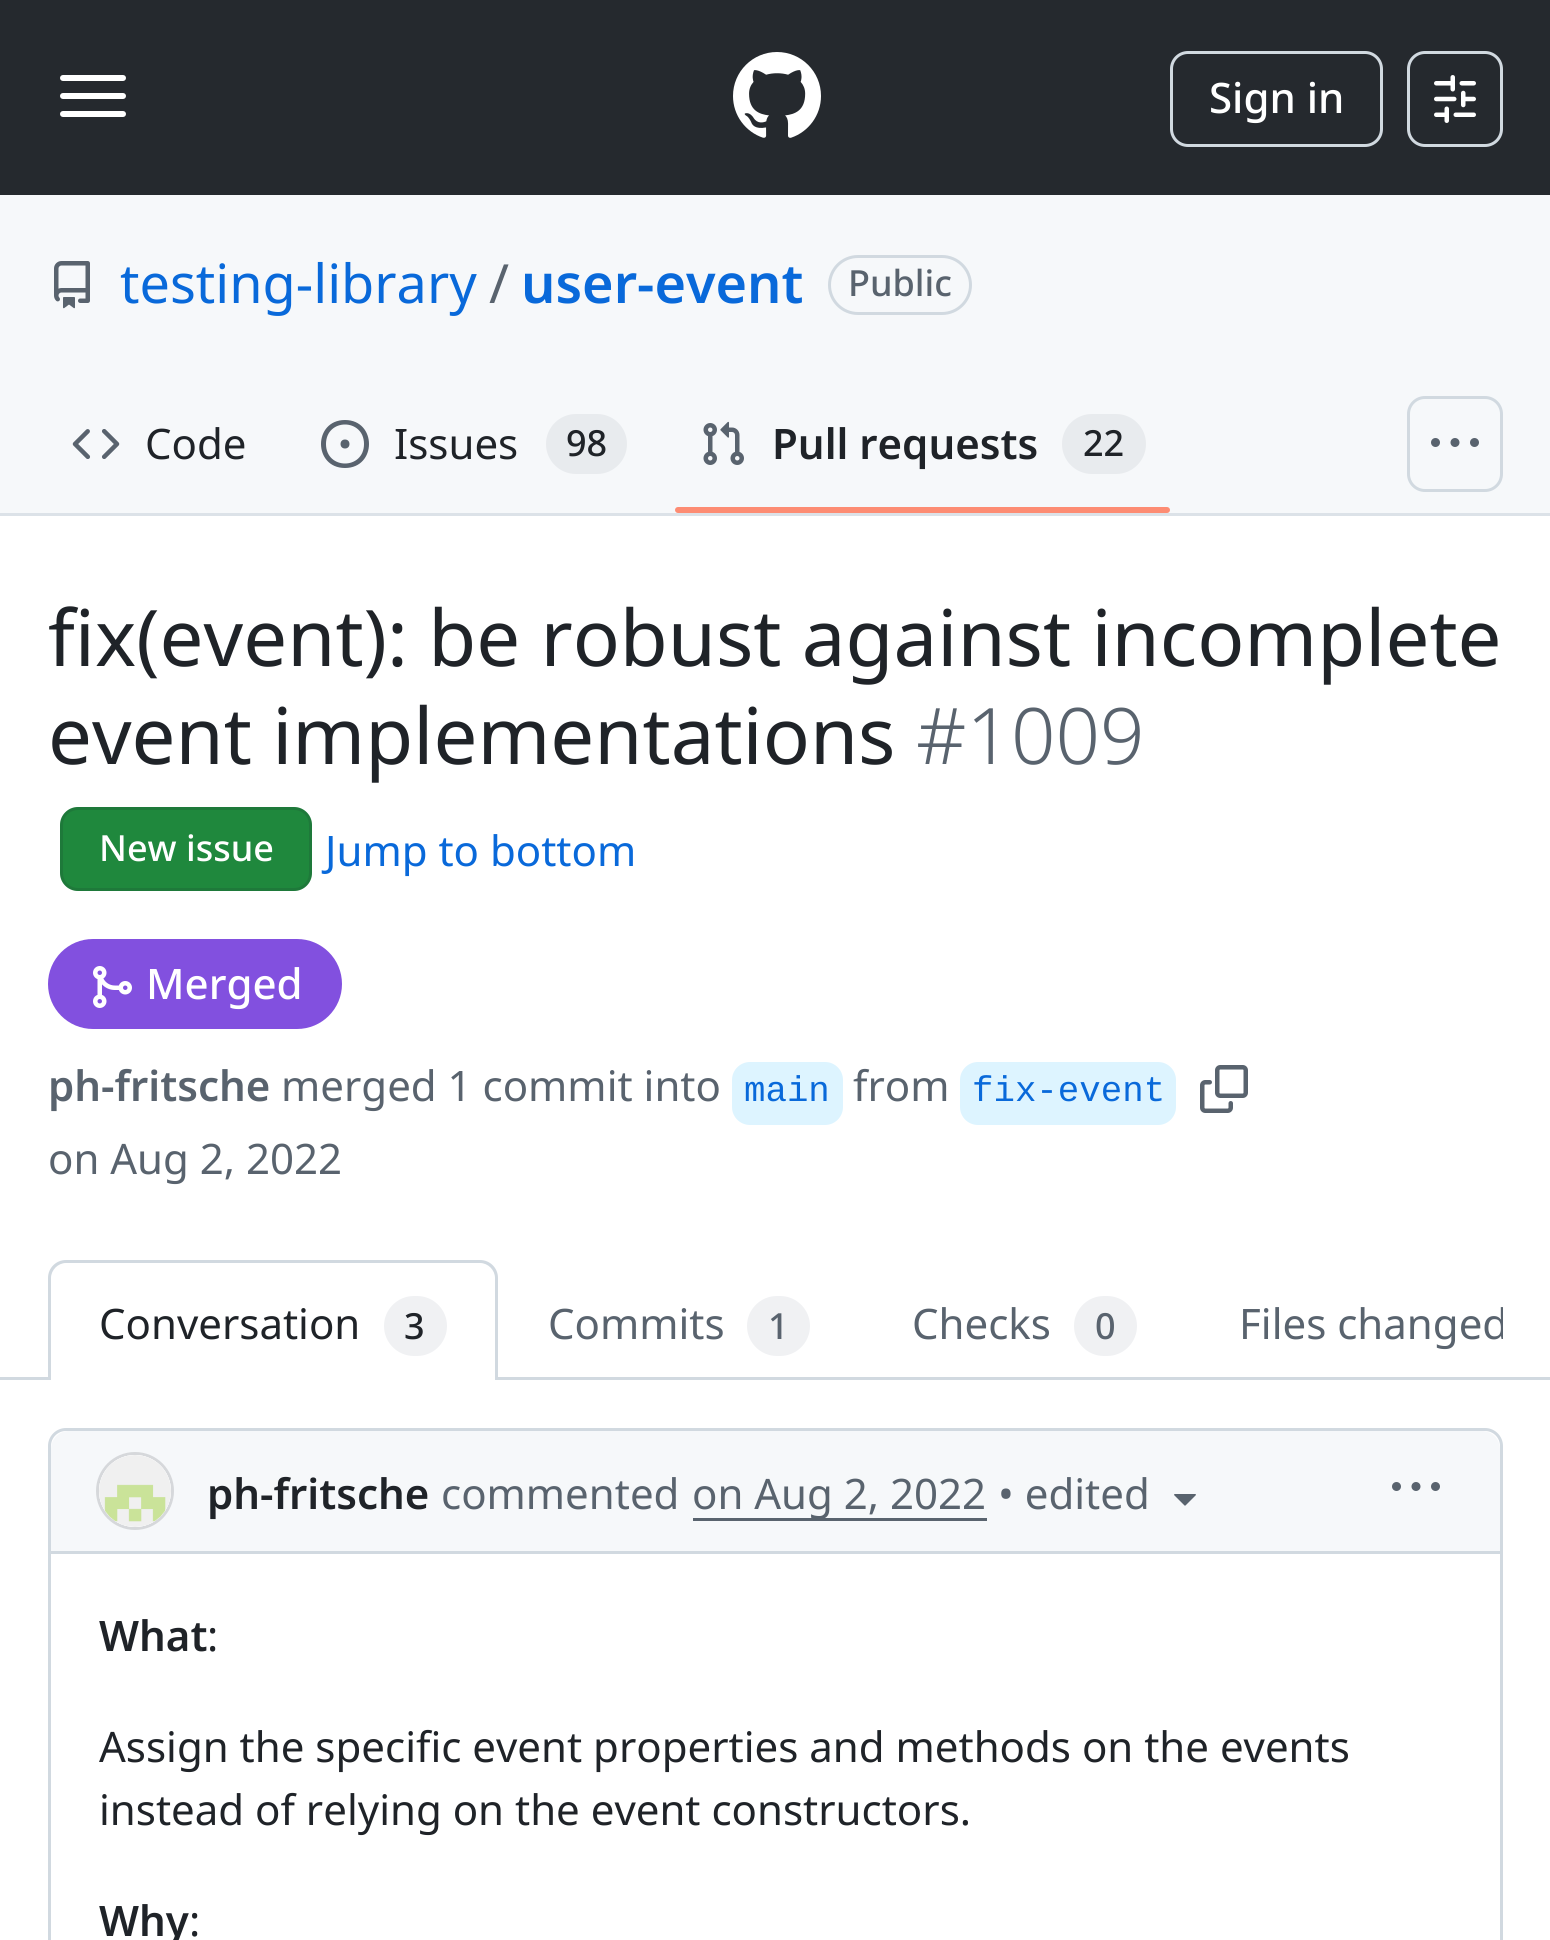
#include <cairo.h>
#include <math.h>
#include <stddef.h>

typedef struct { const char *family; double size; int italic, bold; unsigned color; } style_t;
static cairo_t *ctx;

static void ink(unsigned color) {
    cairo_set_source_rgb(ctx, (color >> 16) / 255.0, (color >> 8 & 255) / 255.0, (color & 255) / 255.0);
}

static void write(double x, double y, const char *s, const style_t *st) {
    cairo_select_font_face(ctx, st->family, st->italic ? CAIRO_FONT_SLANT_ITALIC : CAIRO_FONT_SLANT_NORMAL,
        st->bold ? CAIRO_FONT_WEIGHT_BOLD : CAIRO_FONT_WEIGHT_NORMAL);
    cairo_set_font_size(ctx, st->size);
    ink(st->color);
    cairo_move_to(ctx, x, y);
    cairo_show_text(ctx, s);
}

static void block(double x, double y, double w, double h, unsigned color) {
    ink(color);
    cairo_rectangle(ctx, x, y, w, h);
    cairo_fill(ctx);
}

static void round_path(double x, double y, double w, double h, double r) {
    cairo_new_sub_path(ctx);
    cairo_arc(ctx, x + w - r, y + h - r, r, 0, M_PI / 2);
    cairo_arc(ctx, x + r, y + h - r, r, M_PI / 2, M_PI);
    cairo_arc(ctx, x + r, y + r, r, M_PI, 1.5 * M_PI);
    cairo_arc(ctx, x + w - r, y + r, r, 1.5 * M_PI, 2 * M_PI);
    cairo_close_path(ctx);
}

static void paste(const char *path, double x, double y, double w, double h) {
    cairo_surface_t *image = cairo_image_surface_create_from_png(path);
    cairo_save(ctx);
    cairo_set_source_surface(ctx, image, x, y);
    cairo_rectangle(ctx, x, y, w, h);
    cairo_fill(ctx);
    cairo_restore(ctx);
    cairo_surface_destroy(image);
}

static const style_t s1 = {"Noto Sans Medium", 42, 0, 0, 0xffffff};
static const style_t s2 = {"Noto Sans", 54, 0, 0, 0x0969da};
static const style_t s3 = {"Noto Sans", 54, 0, 0, 0x59636e};
static const style_t s4 = {"Noto Sans SemiBold", 54, 0, 0, 0x0969da};
static const style_t s5 = {"Noto Sans Medium", 36, 0, 0, 0x59636e};
static const style_t s6 = {"Noto Sans", 42, 0, 0, 0x1f2328};
static const style_t s7 = {"Noto Sans Medium", 36, 0, 0, 0x1f2328};
static const style_t s8 = {"Noto Sans SemiBold", 42, 0, 0, 0x1f2328};
static const style_t s9 = {"Noto Sans", 78, 0, 0, 0x1f2328};
static const style_t s10 = {"Noto Sans Light", 78, 0, 0, 0x59636e};
static const style_t s11 = {"Noto Sans Medium", 36, 0, 0, 0xffffff};
static const style_t s12 = {"Noto Sans", 42, 0, 0, 0x0969da};
static const style_t s13 = {"Noto Sans SemiBold", 42, 0, 0, 0x59636e};
static const style_t s14 = {"Noto Sans", 42, 0, 0, 0x59636e};
static const style_t s15 = {"Liberation Mono", 35.75, 0, 0, 0x0969da};

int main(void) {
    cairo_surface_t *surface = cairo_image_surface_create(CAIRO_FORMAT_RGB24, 1550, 1940);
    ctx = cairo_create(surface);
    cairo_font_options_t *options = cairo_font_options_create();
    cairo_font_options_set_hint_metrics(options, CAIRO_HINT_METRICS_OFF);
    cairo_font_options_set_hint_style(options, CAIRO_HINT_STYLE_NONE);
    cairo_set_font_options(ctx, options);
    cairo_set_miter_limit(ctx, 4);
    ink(0xffffff);
    cairo_paint(ctx);
    block(0, 0, 1550, 195, 0x25292e);
    ink(0xffffff);
    round_path(60, 75, 66, 6, 3);
    cairo_fill(ctx);
    round_path(60, 93, 66, 6, 3);
    cairo_fill(ctx);
    round_path(60, 111, 66, 6, 3);
    cairo_fill(ctx);
    paste("pic1.png", 733, 52, 88, 86);
    round_path(1171.5, 52.5, 210, 93, 16.5);
    ink(0xd1d9e0);
    cairo_set_line_width(ctx, 3);
    cairo_stroke(ctx);
    write(1209, 113, "Sign in", &s1);
    round_path(1408.5, 52.5, 93, 93, 16.5);
    ink(0xd1d9e0);
    cairo_stroke(ctx);
    paste("pic2.png", 1434, 75, 42, 48);
    block(0, 195, 1550, 318, 0xf6f8fa);
    paste("pic3.png", 54, 261, 36, 48);
    write(120, 303, "testing-library", &s2);
    write(489, 303, "/", &s3);
    write(521, 303, "user-event", &s4);
    round_path(829.5, 256.5, 141, 57, 28.5);
    ink(0xd1d9e0);
    cairo_stroke(ctx);
    write(848, 296, "Public", &s5);
    block(0, 513, 1550, 3, 0xdce2e8);
    paste("pic4.png", 72, 429, 48, 30);
    write(145, 459, "Code", &s6);
    ink(0x59636e);
    cairo_new_path(ctx);
    cairo_move_to(ctx, 345, 448.5);
    cairo_curve_to(ctx, 351, 448.5, 351, 439.5, 345, 439.5);
    cairo_curve_to(ctx, 339, 439.5, 339, 448.5, 345, 448.5);
    cairo_close_path(ctx);
    cairo_fill(ctx);
    cairo_new_path(ctx);
    cairo_move_to(ctx, 345, 420);
    cairo_curve_to(ctx, 377, 420, 377, 468, 345, 468);
    cairo_curve_to(ctx, 313, 468, 313, 420, 345, 420);
    cairo_close_path(ctx);
    cairo_move_to(ctx, 326, 444);
    cairo_curve_to(ctx, 326, 470, 364, 470, 364, 444);
    cairo_curve_to(ctx, 364, 418, 326, 418, 326, 444);
    cairo_close_path(ctx);
    cairo_fill(ctx);
    write(394, 459, "Issues", &s6);
    ink(0xe8ebee);
    round_path(546, 414, 81, 60, 30);
    cairo_fill(ctx);
    write(566, 456, "98", &s7);
    paste("pic5.png", 703, 421, 41, 44);
    write(772, 459, "Pull requests", &s8);
    ink(0xe8ebee);
    round_path(1062, 414, 84, 60, 30);
    cairo_fill(ctx);
    write(1083, 456, "22", &s7);
    ink(0xfd8c73);
    round_path(675, 507, 495, 6, 3);
    cairo_fill(ctx);
    round_path(1408.5, 397.5, 93, 93, 16.5);
    ink(0xd1d9e0);
    cairo_stroke(ctx);
    paste("pic6.png", 1431, 438, 48, 9);
    write(48, 666, "fix(event): be robust against incomplete", &s9);
    write(48, 764, "event implementations", &s9);
    write(916, 764, "#1009", &s10);
    ink(0x1f883d);
    round_path(60, 807, 252, 84, 18);
    cairo_fill(ctx);
    round_path(61.5, 808.5, 249, 81, 16.5);
    cairo_set_source_rgba(ctx, 0.122, 0.137, 0.157, 0.15);
    cairo_stroke(ctx);
    write(99, 861, "New issue", &s11);
    write(325, 866, "Jump to bottom", &s12);
    ink(0x8250df);
    round_path(48, 939, 294, 90, 45);
    cairo_fill(ctx);
    paste("pic7.png", 93, 966, 39, 42);
    write(146, 999, "Merged", &s1);
    write(48, 1101, "ph-fritsche", &s13);
    write(281, 1101, "merged 1 commit into", &s14);
    ink(0xddf4ff);
    round_path(732, 1062, 111, 63, 18);
    cairo_fill(ctx);
    write(744, 1101, "main", &s15);
    write(853, 1101, "from", &s14);
    ink(0xddf4ff);
    round_path(960, 1062, 216, 63, 18);
    cairo_fill(ctx);
    write(972, 1101, "fix-event", &s15);
    paste("pic8.png", 1200, 1065, 48, 48);
    write(48, 1174, "on Aug 2, 2022", &s14);
    block(0, 1377, 1550, 3, 0xd1d9e0);
    ink(0xffffff);
    cairo_new_path(ctx);
    cairo_move_to(ctx, 66, 1260);
    cairo_line_to(ctx, 480, 1260);
    cairo_curve_to(ctx, 490, 1260, 498, 1268, 498, 1278);
    cairo_line_to(ctx, 498, 1380);
    cairo_line_to(ctx, 48, 1380);
    cairo_line_to(ctx, 48, 1278);
    cairo_curve_to(ctx, 48, 1268, 56, 1260, 66, 1260);
    cairo_close_path(ctx);
    cairo_fill(ctx);
    ink(0xd1d9e0);
    cairo_set_fill_rule(ctx, CAIRO_FILL_RULE_EVEN_ODD);
    cairo_new_path(ctx);
    cairo_move_to(ctx, 66, 1260);
    cairo_line_to(ctx, 480, 1260);
    cairo_curve_to(ctx, 490, 1260, 498, 1268, 498, 1278);
    cairo_line_to(ctx, 498, 1380);
    cairo_line_to(ctx, 48, 1380);
    cairo_line_to(ctx, 48, 1278);
    cairo_curve_to(ctx, 48, 1268, 56, 1260, 66, 1260);
    cairo_close_path(ctx);
    cairo_move_to(ctx, 66, 1263);
    cairo_line_to(ctx, 480, 1263);
    cairo_curve_to(ctx, 488, 1263, 495, 1270, 495, 1278);
    cairo_line_to(ctx, 495, 1380);
    cairo_line_to(ctx, 51, 1380);
    cairo_line_to(ctx, 51, 1278);
    cairo_curve_to(ctx, 51, 1270, 58, 1263, 66, 1263);
    cairo_close_path(ctx);
    cairo_fill(ctx);
    write(99, 1339, "Conversation", &s6);
    ink(0xf0f1f3);
    round_path(384, 1296, 63, 60, 30);
    cairo_fill(ctx);
    write(404, 1339, "3", &s7);
    write(548, 1339, "Commits", &s14);
    ink(0xf0f1f3);
    round_path(747, 1296, 63, 60, 30);
    cairo_fill(ctx);
    write(768, 1339, "1", &s5);
    write(912, 1339, "Checks", &s14);
    ink(0xf0f1f3);
    round_path(1074, 1296, 63, 60, 30);
    cairo_fill(ctx);
    write(1095, 1339, "0", &s5);
    cairo_save(ctx);
    cairo_set_fill_rule(ctx, CAIRO_FILL_RULE_WINDING);
    cairo_rectangle(ctx, 48, 1260, 1455, 120);
    cairo_clip(ctx);
    write(1239, 1339, "Files changed", &s14);
    cairo_restore(ctx);
    round_path(49.5, 1429.5, 1452, 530, 16.5);
    ink(0xd1d9e0);
    cairo_stroke(ctx);
    ink(0xf6f8fa);
    cairo_new_path(ctx);
    cairo_move_to(ctx, 69, 1431);
    cairo_line_to(ctx, 1482, 1431);
    cairo_curve_to(ctx, 1492, 1431, 1500, 1439, 1500, 1449);
    cairo_line_to(ctx, 1500, 1554);
    cairo_line_to(ctx, 51, 1554);
    cairo_line_to(ctx, 51, 1449);
    cairo_curve_to(ctx, 51, 1439, 59, 1431, 69, 1431);
    cairo_close_path(ctx);
    cairo_fill(ctx);
    block(51, 1551, 1449, 3, 0xd1d9e0);
    cairo_arc(ctx, 135, 1491, 37.5, 0, 2 * M_PI);
    ink(0xd6d8db);
    cairo_stroke(ctx);
    ink(0xffffff);
    cairo_arc(ctx, 135, 1491, 36, 0, 2 * M_PI);
    cairo_fill(ctx);
    paste("pic9.png", 99, 1455, 72, 72);
    write(207, 1509, "ph-fritsche", &s8);
    write(441, 1509, "commented", &s14);
    block(693, 1518, 294, 3, 0x59636e);
    write(692, 1509, "on Aug 2, 2022", &s14);
    write(998, 1509, "• edited", &s14);
    paste("pic10.png", 1174, 1494, 22, 12);
    paste("pic6.png", 1392, 1482, 48, 9);
    write(99, 1651, "What", &s8);
    write(207, 1651, ":", &s6);
    write(99, 1762, "Assign the specific event properties and methods on the events", &s6);
    write(99, 1825, "instead of relying on the event constructors.", &s6);
    write(99, 1936, "Why", &s8);
    write(189, 1936, ":", &s6);
    cairo_surface_write_to_png(surface, "screenshot.png");
    cairo_font_options_destroy(options);
    cairo_destroy(ctx);
    cairo_surface_destroy(surface);
    return 0;
}
